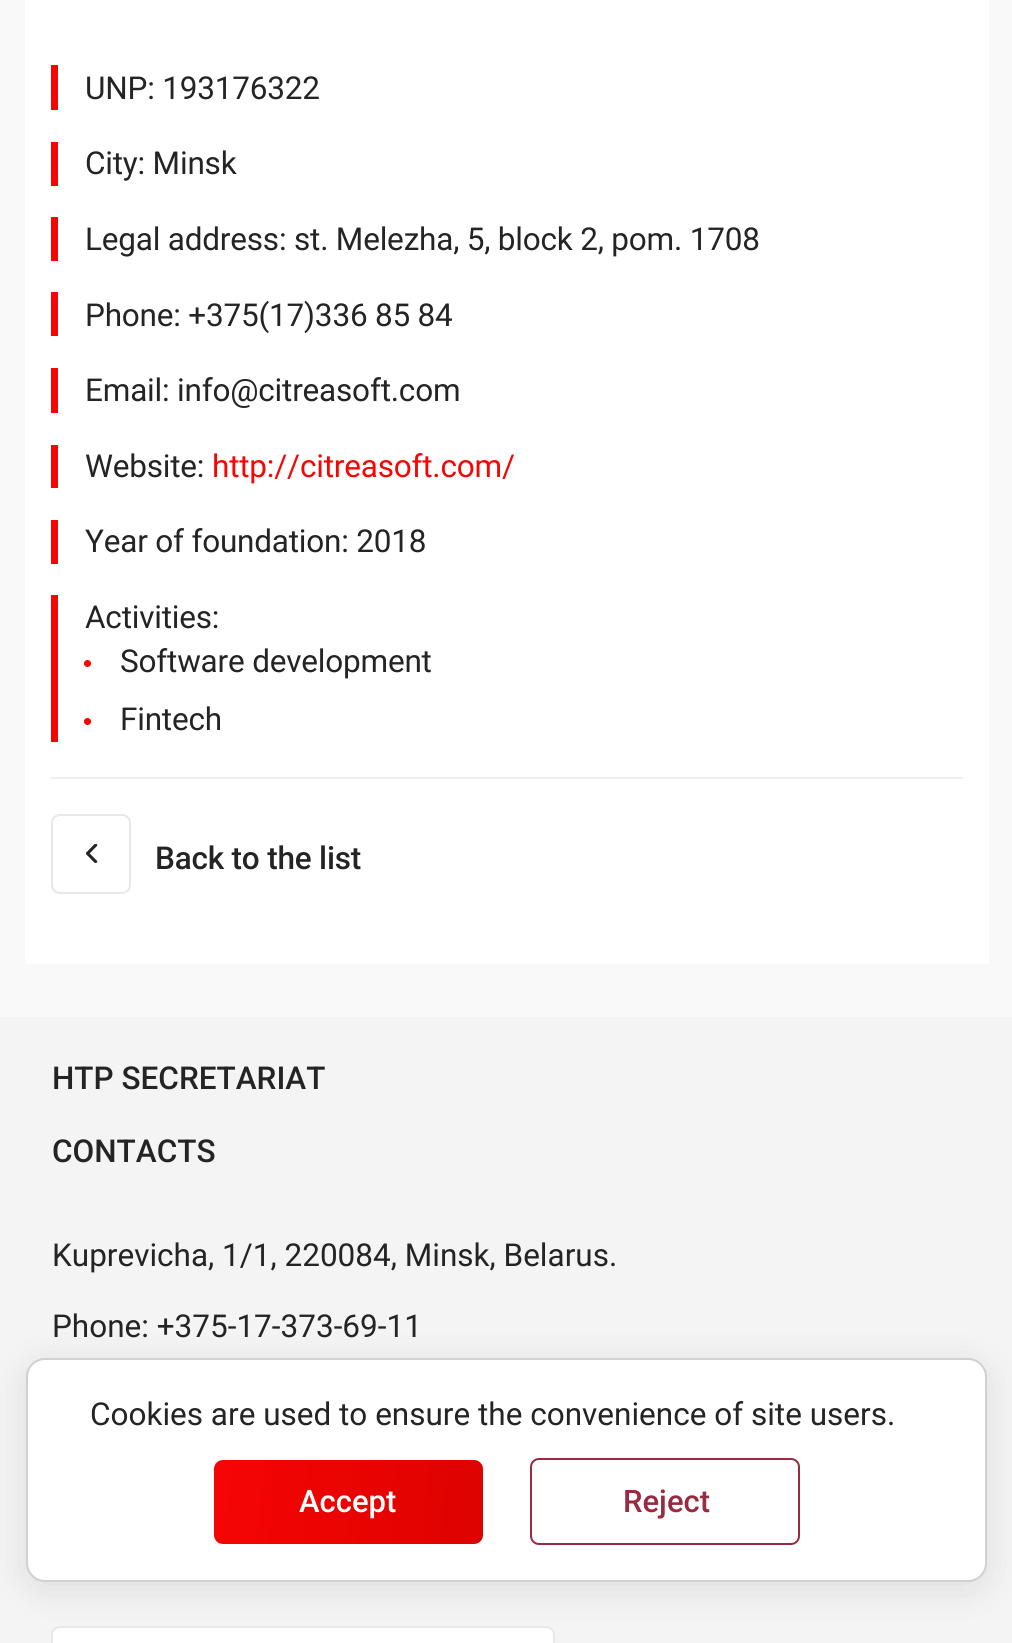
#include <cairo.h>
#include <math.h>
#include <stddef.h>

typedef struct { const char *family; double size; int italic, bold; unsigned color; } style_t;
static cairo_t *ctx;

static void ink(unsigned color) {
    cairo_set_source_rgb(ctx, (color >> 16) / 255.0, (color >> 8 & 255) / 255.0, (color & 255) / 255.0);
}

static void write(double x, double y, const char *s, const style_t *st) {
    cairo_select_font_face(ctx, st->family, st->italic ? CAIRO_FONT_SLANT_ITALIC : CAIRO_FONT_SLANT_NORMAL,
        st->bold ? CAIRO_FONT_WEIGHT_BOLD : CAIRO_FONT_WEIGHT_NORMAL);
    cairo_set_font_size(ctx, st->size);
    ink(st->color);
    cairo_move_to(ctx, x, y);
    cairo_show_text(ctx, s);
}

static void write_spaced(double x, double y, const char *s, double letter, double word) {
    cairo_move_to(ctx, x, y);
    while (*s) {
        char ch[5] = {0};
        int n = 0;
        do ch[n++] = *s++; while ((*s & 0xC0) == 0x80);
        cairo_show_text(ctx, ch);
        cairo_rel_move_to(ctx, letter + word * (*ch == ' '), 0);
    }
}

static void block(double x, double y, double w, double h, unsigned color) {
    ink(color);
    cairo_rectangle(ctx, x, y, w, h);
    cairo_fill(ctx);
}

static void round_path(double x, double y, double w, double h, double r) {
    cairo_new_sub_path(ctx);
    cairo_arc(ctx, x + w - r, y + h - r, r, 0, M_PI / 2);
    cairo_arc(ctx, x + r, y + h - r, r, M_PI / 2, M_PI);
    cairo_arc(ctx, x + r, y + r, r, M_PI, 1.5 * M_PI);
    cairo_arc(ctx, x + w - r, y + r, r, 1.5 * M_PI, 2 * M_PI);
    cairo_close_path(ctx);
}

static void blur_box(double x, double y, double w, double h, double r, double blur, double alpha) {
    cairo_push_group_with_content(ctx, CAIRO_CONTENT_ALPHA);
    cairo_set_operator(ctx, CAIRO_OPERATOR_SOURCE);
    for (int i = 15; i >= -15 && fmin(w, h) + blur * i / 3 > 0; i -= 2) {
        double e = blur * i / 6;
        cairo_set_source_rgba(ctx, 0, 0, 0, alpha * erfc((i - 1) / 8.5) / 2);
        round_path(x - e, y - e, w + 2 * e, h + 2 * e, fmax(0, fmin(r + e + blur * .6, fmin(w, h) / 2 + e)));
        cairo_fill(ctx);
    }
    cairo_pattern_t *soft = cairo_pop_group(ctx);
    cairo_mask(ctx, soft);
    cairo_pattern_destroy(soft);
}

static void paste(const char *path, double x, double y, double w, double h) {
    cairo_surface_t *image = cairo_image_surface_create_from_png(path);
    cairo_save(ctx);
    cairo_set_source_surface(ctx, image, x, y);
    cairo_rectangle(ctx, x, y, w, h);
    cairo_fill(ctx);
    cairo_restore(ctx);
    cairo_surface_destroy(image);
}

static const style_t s1 = {"Roboto Medium", 31.5, 0, 0, 0x242424};
static const style_t s2 = {"Roboto", 31.5, 0, 0, 0x242424};
static const style_t s3 = {"Roboto Medium", 31, 0, 0, 0xffffff};
static const style_t s4 = {"Roboto Medium", 31, 0, 0, 0x962b41};

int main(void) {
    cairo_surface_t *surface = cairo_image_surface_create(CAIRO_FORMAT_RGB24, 1012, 1643);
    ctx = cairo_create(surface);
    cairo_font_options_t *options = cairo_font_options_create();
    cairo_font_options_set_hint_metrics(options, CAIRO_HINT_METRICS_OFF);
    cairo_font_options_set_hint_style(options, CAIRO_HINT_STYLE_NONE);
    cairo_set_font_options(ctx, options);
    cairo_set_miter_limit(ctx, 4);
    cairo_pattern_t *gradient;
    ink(0xf9f9f9);
    cairo_paint(ctx);
    block(25, 0, 964, 964, 0xffffff);
    block(51, 65, 7, 45, 0xf60503);
    cairo_select_font_face(ctx, "Roboto", CAIRO_FONT_SLANT_NORMAL, CAIRO_FONT_WEIGHT_NORMAL);
    cairo_set_font_size(ctx, 31.5);
    ink(0x242424);
    write_spaced(85, 99, "UNP: 193176322", -0.2, 0);
    block(51, 142, 7, 44, 0xf60503);
    ink(0x242424);
    write_spaced(85, 174, "City: Minsk", -0.2, 0);
    block(51, 217, 7, 44, 0xf60503);
    ink(0x242424);
    write_spaced(85, 250, "Legal address: st. Melezha, 5, block 2, pom. 1708", -0.2, 0);
    block(51, 292, 7, 44, 0xf60503);
    ink(0x242424);
    write_spaced(85, 326, "Phone: +375(17)336 85 84", -0.2, 0);
    block(51, 368, 7, 45, 0xf60503);
    ink(0x242424);
    write_spaced(85, 401, "Email: info@citreasoft.com", -0.2, 0);
    block(51, 445, 7, 43, 0xf60503);
    ink(0x242424);
    write_spaced(85, 477, "Website:", -0.2, 0);
    ink(0xf60503);
    write_spaced(212, 477, "http://citreasoft.com/", -0.2, 0);
    block(51, 520, 7, 44, 0xf60503);
    ink(0x242424);
    write_spaced(85, 552, "Year of foundation: 2018", -0.2, 0);
    block(51, 595, 7, 147, 0xf60503);
    ink(0x242424);
    write_spaced(85, 628, "Activities:", -0.2, 0);
    ink(0xf60503);
    cairo_new_path(ctx);
    cairo_arc(ctx, 87.5, 663.5, 3.5, 0, 2 * M_PI);
    cairo_fill(ctx);
    ink(0x242424);
    write_spaced(120, 672, "Software development", -0.2, 0);
    ink(0xf60503);
    cairo_new_path(ctx);
    cairo_arc(ctx, 87.5, 721.5, 3.5, 0, 2 * M_PI);
    cairo_fill(ctx);
    ink(0x242424);
    write_spaced(120, 730, "Fintech", -0.2, 0);
    block(51, 777, 912, 2, 0xeeeeee);
    paste("pic1.png", 86, 844, 12, 19);
    round_path(52, 815, 78, 78, 8);
    ink(0xe8e8e8);
    cairo_stroke(ctx);
    cairo_select_font_face(ctx, "Roboto Medium", CAIRO_FONT_SLANT_NORMAL, CAIRO_FONT_WEIGHT_NORMAL);
    ink(0x242424);
    write_spaced(155, 869, "Back to the list", -0.2, 0);
    block(0, 1017, 1012, 626, 0xf4f4f4);
    write(52, 1089, "HTP SECRETARIAT", &s1);
    write(52, 1162, "CONTACTS", &s1);
    write(52, 1266, "Kuprevicha, 1/1, 220084, Minsk, Belarus.", &s2);
    write(52, 1337, "Phone: +375-17-373-69-11", &s2);
    ink(0xffffff);
    round_path(52, 1627, 502, 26, 8);
    cairo_fill_preserve(ctx);
    ink(0xe8e8e8);
    cairo_stroke(ctx);
    ink(0x000000);
    blur_box(26, 1365, 961, 224, 19, 17.5, 0.1);
    ink(0xffffff);
    round_path(27, 1359, 959, 222, 18);
    cairo_fill_preserve(ctx);
    ink(0xd0d0d0);
    cairo_stroke(ctx);
    write(90, 1425, "Cookies are used to ensure the convenience of site users.", &s2);
    gradient = cairo_pattern_create_linear(211, 1491, 485, 1512);
    cairo_pattern_add_color_stop_rgba(gradient, 0, 0.965, 0.02, 0.012, 1);
    cairo_pattern_add_color_stop_rgba(gradient, 1, 0.867, 0.008, 0, 1);
    cairo_set_source(ctx, gradient);
    cairo_pattern_destroy(gradient);
    round_path(214, 1460, 269, 84, 9);
    cairo_fill(ctx);
    write(299, 1512, "Accept", &s3);
    round_path(531, 1459, 268, 85, 8);
    ink(0x962b41);
    cairo_stroke(ctx);
    write(623, 1512, "Reject", &s4);
    cairo_surface_write_to_png(surface, "screenshot.png");
    cairo_font_options_destroy(options);
    cairo_destroy(ctx);
    cairo_surface_destroy(surface);
    return 0;
}
